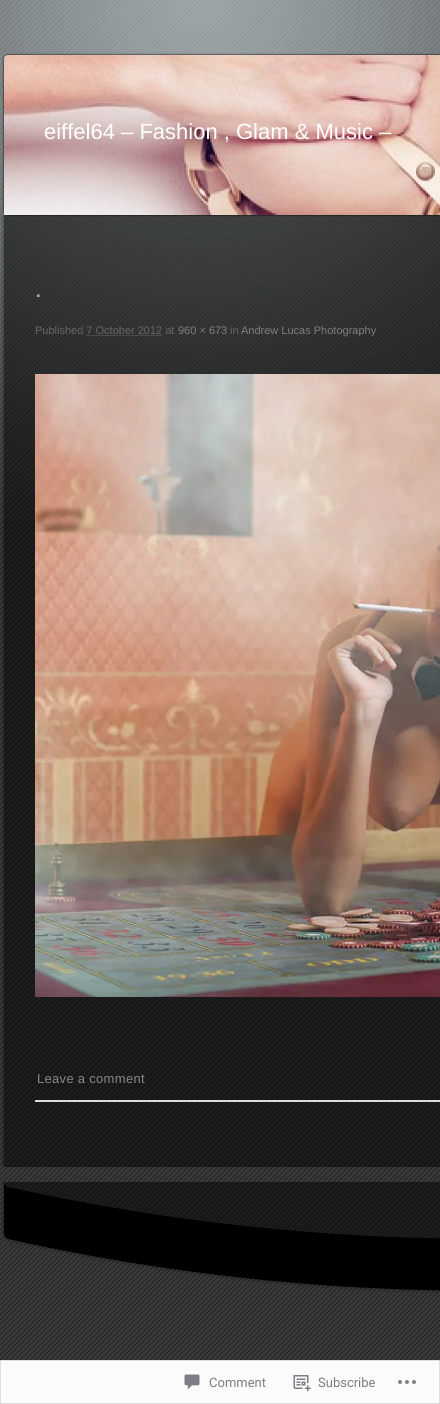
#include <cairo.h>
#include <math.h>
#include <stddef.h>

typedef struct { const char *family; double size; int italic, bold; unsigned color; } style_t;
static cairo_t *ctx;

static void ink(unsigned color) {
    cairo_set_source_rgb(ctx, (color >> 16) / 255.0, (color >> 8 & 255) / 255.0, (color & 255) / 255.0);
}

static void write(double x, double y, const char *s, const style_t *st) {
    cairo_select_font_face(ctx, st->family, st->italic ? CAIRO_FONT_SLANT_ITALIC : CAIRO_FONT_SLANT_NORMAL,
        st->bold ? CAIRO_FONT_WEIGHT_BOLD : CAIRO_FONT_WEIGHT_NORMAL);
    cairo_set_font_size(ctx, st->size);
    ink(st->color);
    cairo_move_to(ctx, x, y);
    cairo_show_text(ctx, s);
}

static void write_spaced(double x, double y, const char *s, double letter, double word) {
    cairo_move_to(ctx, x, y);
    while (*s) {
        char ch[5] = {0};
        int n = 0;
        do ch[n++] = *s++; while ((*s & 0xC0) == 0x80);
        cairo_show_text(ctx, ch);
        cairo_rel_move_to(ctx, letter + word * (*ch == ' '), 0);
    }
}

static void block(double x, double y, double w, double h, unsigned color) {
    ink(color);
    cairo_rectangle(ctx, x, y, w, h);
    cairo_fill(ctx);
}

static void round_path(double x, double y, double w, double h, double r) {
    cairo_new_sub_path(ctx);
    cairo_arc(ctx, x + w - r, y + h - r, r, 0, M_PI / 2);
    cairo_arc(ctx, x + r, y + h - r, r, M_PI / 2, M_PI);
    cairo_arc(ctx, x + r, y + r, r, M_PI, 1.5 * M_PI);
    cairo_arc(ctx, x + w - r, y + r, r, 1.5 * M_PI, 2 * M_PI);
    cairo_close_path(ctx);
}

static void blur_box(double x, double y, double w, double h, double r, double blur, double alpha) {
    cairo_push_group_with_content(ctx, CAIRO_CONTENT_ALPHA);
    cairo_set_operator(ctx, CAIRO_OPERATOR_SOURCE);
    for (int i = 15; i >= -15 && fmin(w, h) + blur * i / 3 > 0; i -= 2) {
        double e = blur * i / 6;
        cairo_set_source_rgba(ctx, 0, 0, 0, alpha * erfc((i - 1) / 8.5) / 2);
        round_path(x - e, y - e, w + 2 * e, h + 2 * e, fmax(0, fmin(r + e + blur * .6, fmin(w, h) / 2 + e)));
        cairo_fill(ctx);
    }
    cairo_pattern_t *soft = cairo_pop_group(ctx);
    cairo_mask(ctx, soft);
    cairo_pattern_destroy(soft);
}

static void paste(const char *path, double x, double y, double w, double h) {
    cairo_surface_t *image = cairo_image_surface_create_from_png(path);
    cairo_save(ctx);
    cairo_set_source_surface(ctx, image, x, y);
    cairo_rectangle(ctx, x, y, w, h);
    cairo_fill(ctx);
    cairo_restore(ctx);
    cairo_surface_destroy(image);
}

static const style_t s1 = {"Liberation Sans", 22, 0, 0, 0xffffff};
static const style_t s2 = {"Liberation Sans", 24, 0, 0, 0xb8babb};
static const style_t s3 = {"Liberation Sans", 11, 0, 0, 0x666666};
static const style_t s4 = {"Liberation Sans", 11, 0, 0, 0x797f80};
static const style_t s5 = {"Roboto", 13, 0, 0, 0x797f80};

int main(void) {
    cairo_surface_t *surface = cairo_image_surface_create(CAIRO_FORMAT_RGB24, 440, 1404);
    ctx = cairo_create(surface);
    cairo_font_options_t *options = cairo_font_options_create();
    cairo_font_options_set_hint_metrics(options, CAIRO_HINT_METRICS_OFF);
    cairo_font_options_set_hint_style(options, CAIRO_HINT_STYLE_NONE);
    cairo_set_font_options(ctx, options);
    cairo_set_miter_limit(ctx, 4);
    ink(0xffffff);
    cairo_paint(ctx);
    paste("pic1.png", 0, 0, 440, 1403);
    paste("pic2.png", 0, 0, 440, 520);
    paste("pic4.png", 1, 215, 439, 952);
    ink(0x000000);
    blur_box(4, 55, 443, 160, 4, 1, 1);
    paste("pic3.png", 4, 55, 436, 160);
    write(44, 139, "eiffel64 – Fashion , Glam & Music –", &s1);
    write(35, 297, ".", &s2);
    write(35, 334, "Published 7 October 2012 at", &s3);
    write(178, 334, "960 × 673", &s4);
    write(230, 334, "in", &s3);
    write(241, 334, "Andrew Lucas Photography", &s4);
    cairo_new_path(ctx);
    cairo_move_to(ctx, 86.5, 335.5);
    cairo_line_to(ctx, 162, 335.5);
    ink(0x666666);
    cairo_set_line_width(ctx, 1);
    cairo_set_dash(ctx, (double[]){1, 1}, 2, 0);
    cairo_stroke(ctx);
    paste("pic5.png", 35, 374, 405, 623);
    cairo_set_font_size(ctx, 13);
    ink(0x888888);
    write_spaced(37, 1083, "Leave a comment", 0.3, 0);
    block(35, 1100, 405, 2, 0xdcdcde);
    paste("pic6.png", 2, 1182, 438, 111);
    cairo_set_source_rgba(ctx, 1, 1, 1, 0.98);
    cairo_rectangle(ctx, 0.5, 1360.5, 439, 43);
    cairo_fill_preserve(ctx);
    ink(0xdddddf);
    cairo_set_dash(ctx, NULL, 0, 0);
    cairo_stroke(ctx);
    paste("pic7.png", 184, 1374, 16, 16);
    write(209, 1387, "Comment", &s5);
    paste("pic8.png", 293, 1375, 18, 17);
    write(318, 1387, "Subscribe", &s5);
    paste("pic9.png", 398, 1380, 18, 4);
    cairo_surface_write_to_png(surface, "screenshot.png");
    cairo_font_options_destroy(options);
    cairo_destroy(ctx);
    cairo_surface_destroy(surface);
    return 0;
}
